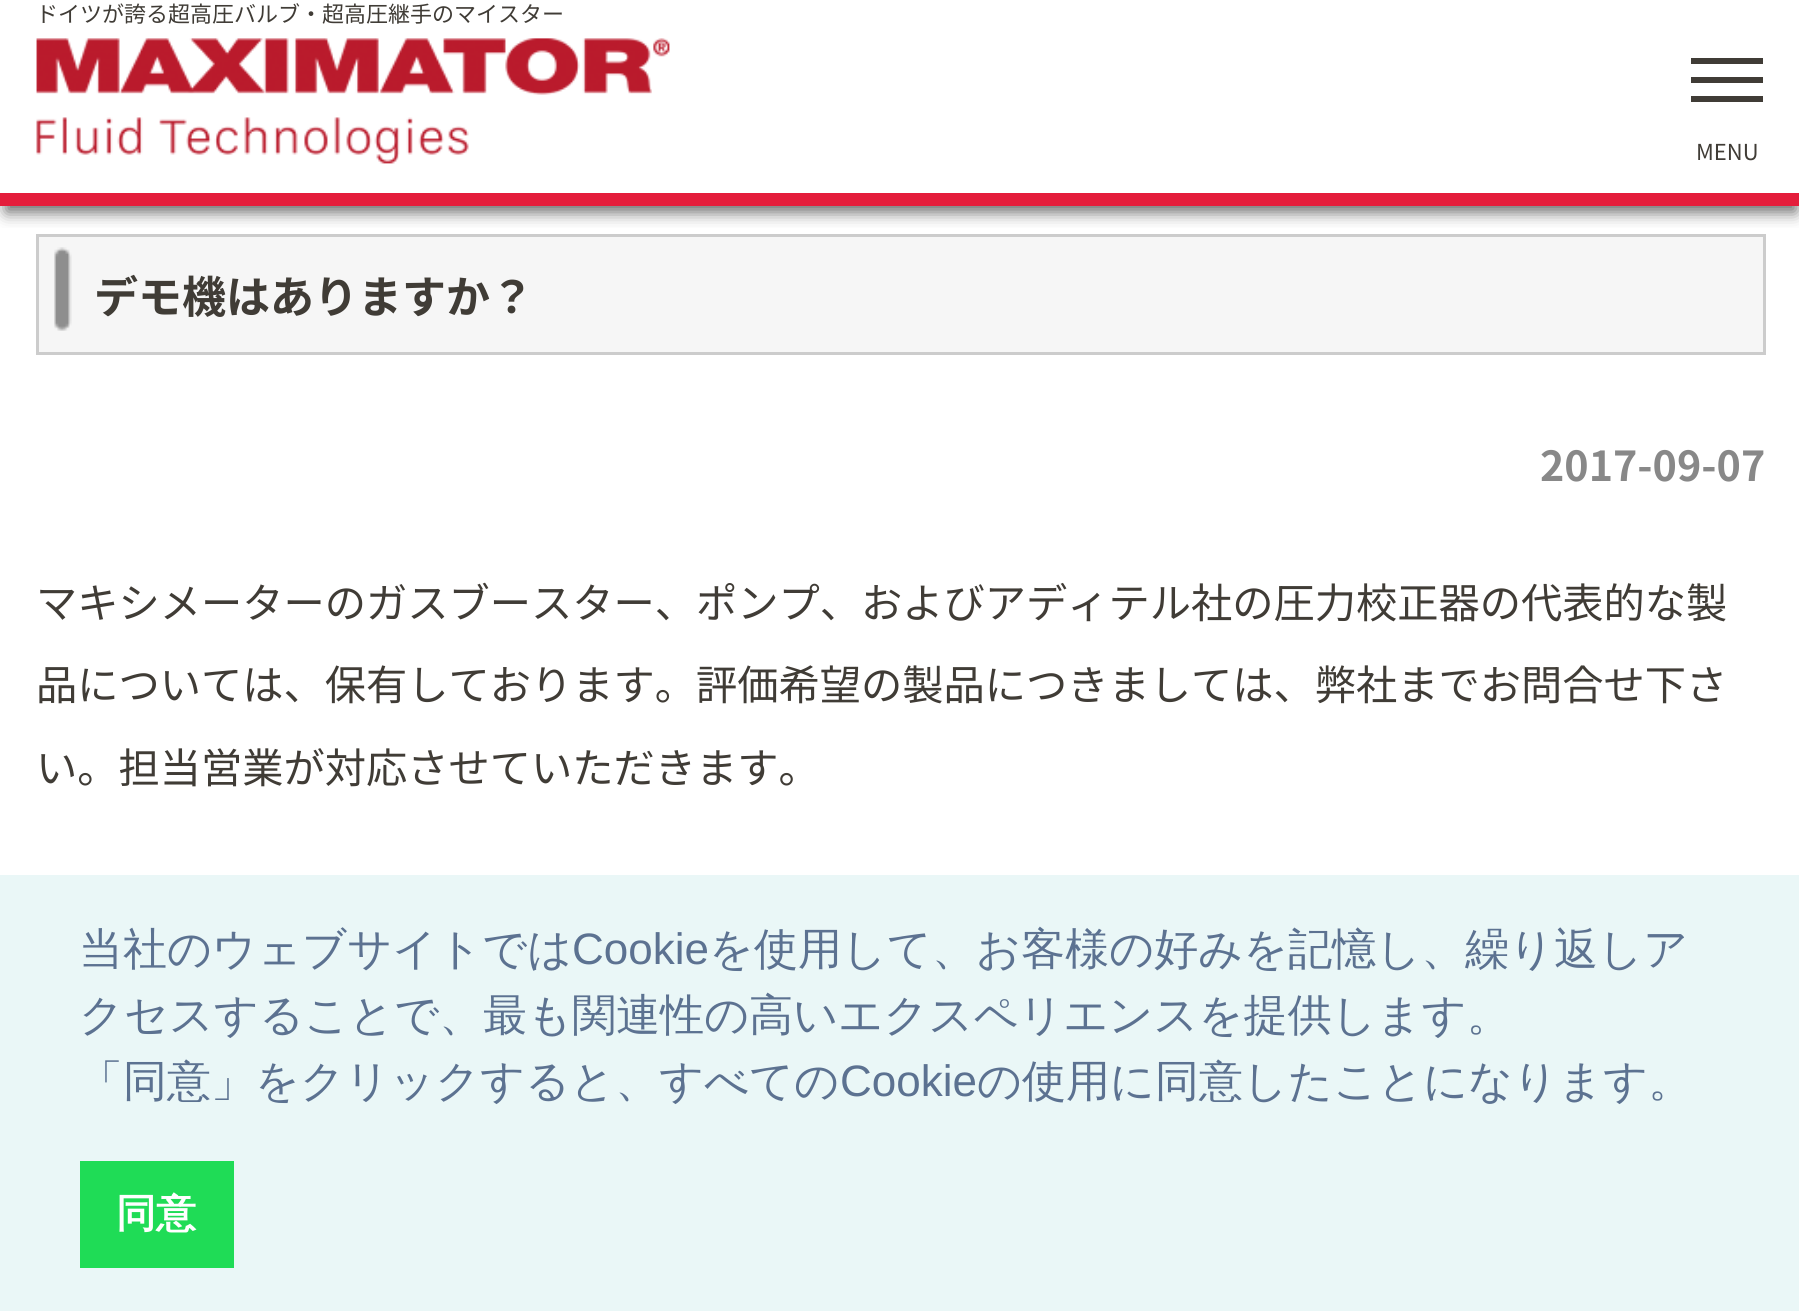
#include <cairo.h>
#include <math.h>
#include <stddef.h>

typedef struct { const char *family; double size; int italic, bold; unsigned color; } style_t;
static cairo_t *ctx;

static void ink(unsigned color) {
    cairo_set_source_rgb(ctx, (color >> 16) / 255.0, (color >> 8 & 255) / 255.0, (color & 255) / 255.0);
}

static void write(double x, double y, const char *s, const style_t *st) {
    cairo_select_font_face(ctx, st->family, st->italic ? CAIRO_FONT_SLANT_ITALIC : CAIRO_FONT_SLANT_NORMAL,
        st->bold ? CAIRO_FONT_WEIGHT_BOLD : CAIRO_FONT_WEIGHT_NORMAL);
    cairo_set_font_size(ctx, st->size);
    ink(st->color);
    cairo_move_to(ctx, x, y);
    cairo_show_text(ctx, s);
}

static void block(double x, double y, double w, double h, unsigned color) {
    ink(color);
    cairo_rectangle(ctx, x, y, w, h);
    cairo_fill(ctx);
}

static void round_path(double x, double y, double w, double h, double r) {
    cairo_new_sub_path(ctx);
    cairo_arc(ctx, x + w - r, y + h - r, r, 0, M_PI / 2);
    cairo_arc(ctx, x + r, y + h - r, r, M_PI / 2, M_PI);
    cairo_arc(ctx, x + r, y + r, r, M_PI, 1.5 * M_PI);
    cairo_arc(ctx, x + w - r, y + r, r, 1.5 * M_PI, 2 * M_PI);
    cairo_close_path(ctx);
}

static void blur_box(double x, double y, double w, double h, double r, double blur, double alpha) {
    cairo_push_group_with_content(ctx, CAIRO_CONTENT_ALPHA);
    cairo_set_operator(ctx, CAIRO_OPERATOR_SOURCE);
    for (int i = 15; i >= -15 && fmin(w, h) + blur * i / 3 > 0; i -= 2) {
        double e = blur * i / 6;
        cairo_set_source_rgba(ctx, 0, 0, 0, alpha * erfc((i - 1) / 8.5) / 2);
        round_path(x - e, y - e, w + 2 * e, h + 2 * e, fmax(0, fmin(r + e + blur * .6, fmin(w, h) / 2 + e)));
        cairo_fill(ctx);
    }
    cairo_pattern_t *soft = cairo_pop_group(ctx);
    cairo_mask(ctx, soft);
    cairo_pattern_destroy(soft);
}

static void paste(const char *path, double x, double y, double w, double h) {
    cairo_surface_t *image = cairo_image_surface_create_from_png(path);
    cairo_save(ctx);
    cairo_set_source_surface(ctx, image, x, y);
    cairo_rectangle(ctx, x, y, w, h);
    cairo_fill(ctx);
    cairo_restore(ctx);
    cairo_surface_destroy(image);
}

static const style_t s1 = {"Noto Sans JP", 22, 0, 0, 0x403c36};
static const style_t s2 = {"Noto Sans JP", 44, 0, 1, 0x403c36};
static const style_t s3 = {"Noto Sans JP", 41.25, 0, 1, 0x888888};
static const style_t s4 = {"Noto Sans JP", 41.25, 0, 0, 0x403c36};
static const style_t s5 = {"WenQuanYi Zen Hei Medium", 44, 0, 0, 0x5c7291};
static const style_t s6 = {"Liberation Sans", 44, 0, 0, 0x5c7291};
static const style_t s7 = {"WenQuanYi Zen Hei", 40, 0, 1, 0xffffff};

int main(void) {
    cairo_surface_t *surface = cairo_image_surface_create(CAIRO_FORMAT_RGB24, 1799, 1311);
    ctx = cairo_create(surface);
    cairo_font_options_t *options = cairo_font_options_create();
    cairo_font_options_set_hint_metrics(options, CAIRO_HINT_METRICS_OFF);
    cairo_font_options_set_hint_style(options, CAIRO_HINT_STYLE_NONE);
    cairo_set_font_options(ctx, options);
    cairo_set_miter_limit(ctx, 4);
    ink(0xffffff);
    cairo_paint(ctx);
    block(39, 237, 1724, 115, 0xf6f6f6);
    paste("pic2.png", 54, 247, 18, 84);
    cairo_rectangle(ctx, 37.5, 235.5, 1727, 118);
    ink(0xcccccc);
    cairo_set_line_width(ctx, 3);
    cairo_stroke(ctx);
    cairo_save(ctx);
    cairo_rectangle(ctx, 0, 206, 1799, 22);
    cairo_clip(ctx);
    ink(0x666666);
    blur_box(6, 17, 1790, 195, 0, 8, 1);
    cairo_restore(ctx);
    block(0, 193, 1799, 13, 0xe41d3b);
    write(36, 22, "ドイツが誇る超高圧バルブ・超高圧継手のマイスター", &s1);
    paste("pic1.png", 36, 38, 634, 126);
    block(1691, 58, 72, 6, 0x403c36);
    block(1691, 77, 72, 6, 0x403c36);
    block(1691, 96, 72, 6, 0x403c36);
    write(1696, 160, "MENU", &s1);
    write(94, 313, "デモ機はありますか？", &s2);
    write(1540, 481, "2017-09-07", &s3);
    write(36, 618, "マキシメーターのガスブースター、ポンプ、およびアディテル社の圧力校正器の代表的な製", &s4);
    write(36, 700, "品については、保有しております。評価希望の製品につきましては、弊社までお問合せ下さ", &s4);
    write(36, 783, "い。担当営業が対応させていただきます。", &s4);
    block(0, 875, 1799, 436, 0xeaf7f7);
    write(79, 964, "当社のウェブサイトでは", &s5);
    write(572, 964, "Cookie", &s6);
    write(709, 964, "を使用して、お客様の好みを記憶し、繰り返しア", &s5);
    write(79, 1030, "クセスすることで、最も関連性の高いエクスペリエンスを提供します。", &s5);
    write(79, 1096, "「同意」をクリックすると、すべての", &s5);
    write(840, 1096, "Cookie", &s6);
    write(977, 1096, "の使用に同意したことになります。", &s5);
    block(80, 1161, 154, 107, 0x1fdc56);
    write(116, 1227, "同意", &s7);
    cairo_surface_write_to_png(surface, "screenshot.png");
    cairo_font_options_destroy(options);
    cairo_destroy(ctx);
    cairo_surface_destroy(surface);
    return 0;
}
